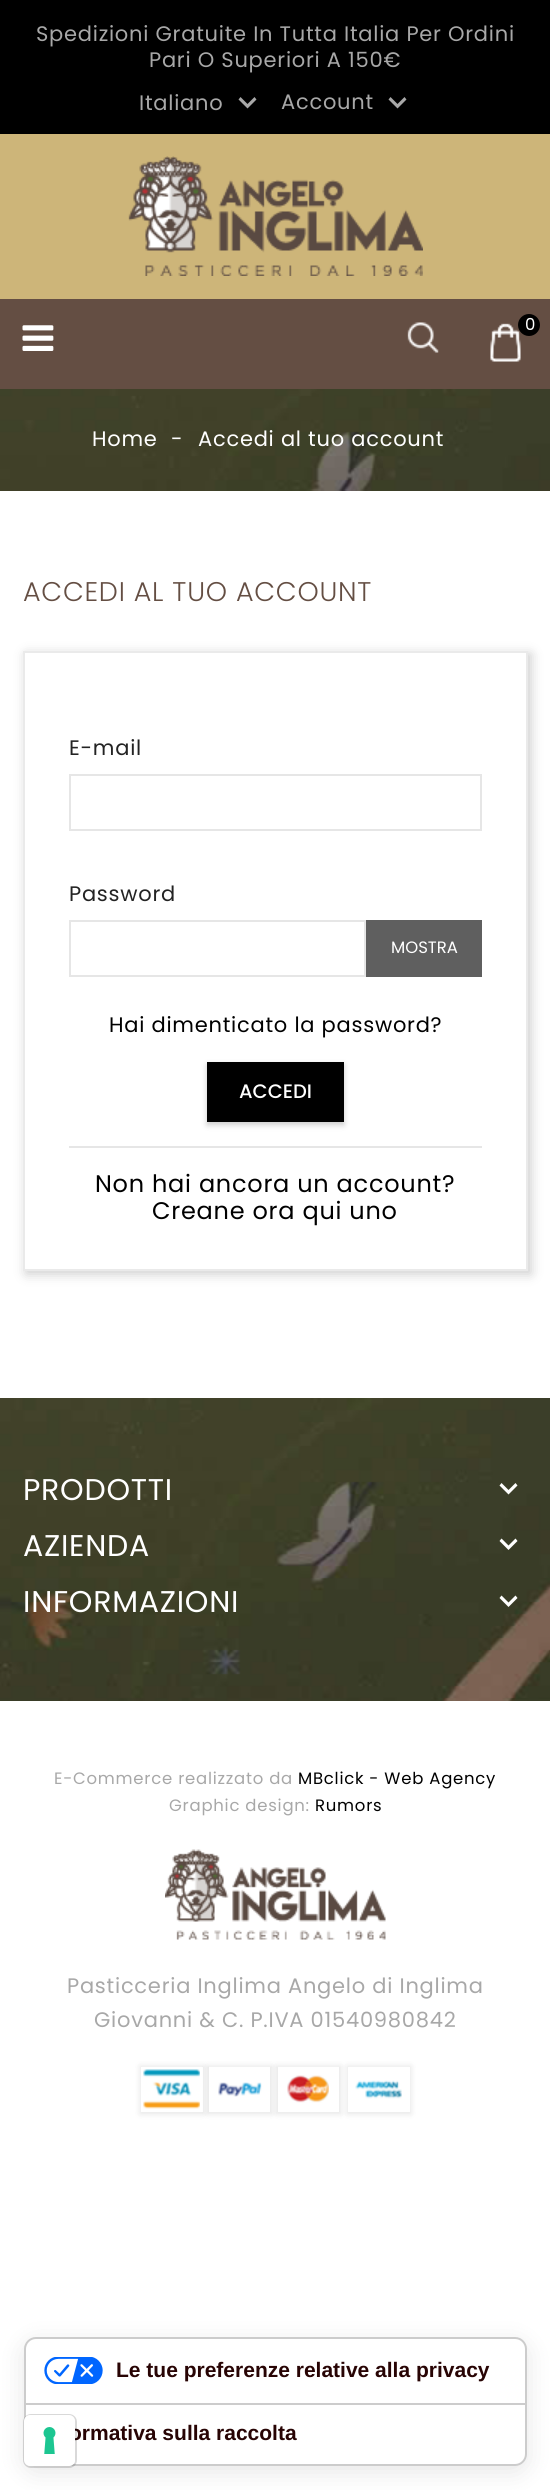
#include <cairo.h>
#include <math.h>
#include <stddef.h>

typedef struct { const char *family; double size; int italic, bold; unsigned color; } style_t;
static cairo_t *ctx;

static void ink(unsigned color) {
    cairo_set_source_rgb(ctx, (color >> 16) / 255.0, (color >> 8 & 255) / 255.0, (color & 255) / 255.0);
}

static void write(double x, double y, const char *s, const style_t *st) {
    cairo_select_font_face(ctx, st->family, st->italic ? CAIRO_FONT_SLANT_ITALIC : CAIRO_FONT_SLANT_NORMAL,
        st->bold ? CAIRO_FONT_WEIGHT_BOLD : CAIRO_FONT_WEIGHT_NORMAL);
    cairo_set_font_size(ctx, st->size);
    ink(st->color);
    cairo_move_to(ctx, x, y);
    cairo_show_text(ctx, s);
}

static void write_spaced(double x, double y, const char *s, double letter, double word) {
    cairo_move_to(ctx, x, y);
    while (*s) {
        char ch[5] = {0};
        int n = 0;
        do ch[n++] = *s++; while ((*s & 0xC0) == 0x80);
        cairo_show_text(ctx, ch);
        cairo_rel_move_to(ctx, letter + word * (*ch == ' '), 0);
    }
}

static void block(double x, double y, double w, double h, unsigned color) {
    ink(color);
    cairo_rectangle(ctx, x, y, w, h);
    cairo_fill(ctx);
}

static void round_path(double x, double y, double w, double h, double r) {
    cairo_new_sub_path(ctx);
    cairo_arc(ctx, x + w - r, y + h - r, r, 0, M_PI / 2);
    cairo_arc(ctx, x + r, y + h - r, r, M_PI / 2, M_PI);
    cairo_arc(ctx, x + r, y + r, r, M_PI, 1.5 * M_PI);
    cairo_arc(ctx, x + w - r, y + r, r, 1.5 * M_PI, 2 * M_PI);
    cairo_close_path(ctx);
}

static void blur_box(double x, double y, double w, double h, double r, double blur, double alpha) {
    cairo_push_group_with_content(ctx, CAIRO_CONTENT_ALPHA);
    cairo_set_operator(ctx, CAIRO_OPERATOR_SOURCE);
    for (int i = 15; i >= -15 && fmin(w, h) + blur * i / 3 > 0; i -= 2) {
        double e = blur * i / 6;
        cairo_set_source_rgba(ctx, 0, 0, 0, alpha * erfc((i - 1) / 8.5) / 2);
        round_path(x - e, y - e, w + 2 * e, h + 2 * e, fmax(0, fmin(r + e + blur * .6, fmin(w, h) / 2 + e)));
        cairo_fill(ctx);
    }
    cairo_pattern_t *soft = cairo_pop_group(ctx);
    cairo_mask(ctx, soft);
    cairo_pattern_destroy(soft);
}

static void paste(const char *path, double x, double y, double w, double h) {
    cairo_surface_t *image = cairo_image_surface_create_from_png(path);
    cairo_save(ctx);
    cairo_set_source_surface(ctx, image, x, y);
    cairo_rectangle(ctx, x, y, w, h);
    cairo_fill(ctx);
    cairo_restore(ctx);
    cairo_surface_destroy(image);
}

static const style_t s1 = {"Poppins", 16.5, 0, 0, 0xffffff};
static const style_t s2 = {"Poppins Medium", 19.5, 0, 0, 0xffffff};
static const style_t s3 = {"Liberation Sans", 21, 0, 1, 0x280404};

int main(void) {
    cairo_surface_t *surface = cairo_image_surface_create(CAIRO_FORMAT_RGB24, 550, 2490);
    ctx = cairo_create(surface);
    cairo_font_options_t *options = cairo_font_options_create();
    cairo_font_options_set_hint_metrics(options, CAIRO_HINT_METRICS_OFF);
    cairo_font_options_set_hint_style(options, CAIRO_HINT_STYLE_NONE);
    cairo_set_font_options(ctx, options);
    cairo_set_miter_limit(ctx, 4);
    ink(0xffffff);
    cairo_paint(ctx);
    block(0, 134, 550, 165, 0xcdb579);
    block(0, 0, 550, 134, 0x000000);
    cairo_select_font_face(ctx, "Poppins", CAIRO_FONT_SLANT_NORMAL, CAIRO_FONT_WEIGHT_NORMAL);
    cairo_set_font_size(ctx, 21);
    ink(0xa8a8a8);
    write_spaced(36, 41, "Spedizioni Gratuite In Tutta Italia Per Ordini", 0.75, 0);
    write_spaced(149, 67, "Pari O Superiori A 150€", 0.75, 0);
    write_spaced(139, 110, "Italiano", 0.75, 0);
    cairo_new_path(ctx);
    cairo_move_to(ctx, 240.5, 97);
    cairo_line_to(ctx, 247.5, 104);
    cairo_line_to(ctx, 254.5, 97);
    cairo_line_to(ctx, 256.5, 99.5);
    cairo_line_to(ctx, 247.5, 108.5);
    cairo_line_to(ctx, 238.5, 99.5);
    cairo_close_path(ctx);
    cairo_fill(ctx);
    write_spaced(281, 109, "Account", 0.75, 0);
    cairo_new_path(ctx);
    cairo_move_to(ctx, 390.5, 97);
    cairo_line_to(ctx, 397.5, 104);
    cairo_line_to(ctx, 404.5, 97);
    cairo_line_to(ctx, 406.5, 99.5);
    cairo_line_to(ctx, 397.5, 108.5);
    cairo_line_to(ctx, 388.5, 99.5);
    cairo_close_path(ctx);
    cairo_fill(ctx);
    paste("pic1.png", 128, 156, 295, 120);
    block(0, 299, 550, 90, 0x644e43);
    paste("pic2.png", 22, 325, 32, 26);
    paste("pic3.png", 407, 322, 32, 31);
    paste("pic4.png", 490, 323, 31, 39);
    ink(0x000000);
    cairo_arc(ctx, 529, 325, 11, 0, 2 * M_PI);
    cairo_fill(ctx);
    cairo_set_font_size(ctx, 16.5);
    ink(0xffffff);
    write_spaced(525, 330, "0", 2, 0);
    paste("pic5.png", 0, 389, 550, 102);
    cairo_set_font_size(ctx, 21);
    write_spaced(92, 446, "Home", 0.75, 0);
    write_spaced(171, 446, "-", 0.75, 0);
    write_spaced(198, 446, "Accedi al tuo account", 0.75, 0);
    cairo_select_font_face(ctx, "Poppins Light", CAIRO_FONT_SLANT_NORMAL, CAIRO_FONT_WEIGHT_NORMAL);
    cairo_set_font_size(ctx, 27);
    ink(0x644e43);
    write_spaced(23, 601, "ACCEDI AL TUO ACCOUNT", 0.75, 0);
    ink(0x000000);
    blur_box(26, 654, 505, 620, 0, 6, 0.2);
    ink(0xffffff);
    cairo_rectangle(ctx, 24, 652, 503, 618);
    cairo_fill_preserve(ctx);
    ink(0xeaeaea);
    cairo_stroke(ctx);
    cairo_select_font_face(ctx, "Poppins", CAIRO_FONT_SLANT_NORMAL, CAIRO_FONT_WEIGHT_NORMAL);
    cairo_set_font_size(ctx, 21);
    ink(0x232323);
    write_spaced(69, 755, "E-mail", 0.75, 0);
    cairo_rectangle(ctx, 70, 775, 411, 55);
    ink(0xe6e6e6);
    cairo_stroke(ctx);
    ink(0x232323);
    write_spaced(69, 901, "Password", 0.75, 0);
    cairo_rectangle(ctx, 70, 921, 295, 55);
    ink(0xe6e6e6);
    cairo_stroke(ctx);
    block(366, 920, 116, 57, 0x5f5f5f);
    write(391, 953, "MOSTRA", &s1);
    cairo_set_font_size(ctx, 21);
    ink(0x000000);
    write_spaced(109, 1032, "Hai dimenticato la password?", 0.75, 0);
    ink(0x000000);
    blur_box(207, 1065, 137, 60, 0, 3, 0.2);
    block(207, 1062, 137, 60, 0x000000);
    write(239, 1098, "ACCEDI", &s2);
    block(69, 1146, 413, 2, 0xe6e6e6);
    cairo_select_font_face(ctx, "Poppins", CAIRO_FONT_SLANT_NORMAL, CAIRO_FONT_WEIGHT_NORMAL);
    cairo_set_font_size(ctx, 24);
    ink(0x000000);
    write_spaced(95, 1192, "Non hai ancora un account?", 0.75, 0);
    write_spaced(152, 1219, "Creane ora qui uno", 0.75, 0);
    paste("pic6.png", 0, 1398, 550, 303);
    cairo_set_font_size(ctx, 30);
    ink(0xffffff);
    write_spaced(23, 1500, "PRODOTTI", 0.75, 0);
    cairo_new_path(ctx);
    cairo_move_to(ctx, 501.5, 1483);
    cairo_line_to(ctx, 508.5, 1490);
    cairo_line_to(ctx, 515.5, 1483);
    cairo_line_to(ctx, 517.5, 1485.5);
    cairo_line_to(ctx, 508.5, 1494.5);
    cairo_line_to(ctx, 499.5, 1485.5);
    cairo_close_path(ctx);
    cairo_fill(ctx);
    write_spaced(23, 1556, "AZIENDA", 0.75, 0);
    cairo_new_path(ctx);
    cairo_move_to(ctx, 501.5, 1538.5);
    cairo_line_to(ctx, 508.5, 1545.5);
    cairo_line_to(ctx, 515.5, 1538.5);
    cairo_line_to(ctx, 517.5, 1541);
    cairo_line_to(ctx, 508.5, 1550);
    cairo_line_to(ctx, 499.5, 1541);
    cairo_close_path(ctx);
    cairo_fill(ctx);
    write_spaced(23, 1612, "INFORMAZIONI", 0.75, 0);
    cairo_new_path(ctx);
    cairo_move_to(ctx, 501.5, 1595.5);
    cairo_line_to(ctx, 508.5, 1602.5);
    cairo_line_to(ctx, 515.5, 1595.5);
    cairo_line_to(ctx, 517.5, 1598);
    cairo_line_to(ctx, 508.5, 1607);
    cairo_line_to(ctx, 499.5, 1598);
    cairo_close_path(ctx);
    cairo_fill(ctx);
    cairo_set_font_size(ctx, 16.5);
    ink(0xa8a8a8);
    write_spaced(54, 1784, "E-Commerce realizzato da", 0.75, 0);
    ink(0x000000);
    write_spaced(298, 1784, "MBclick - Web Agency", 0.75, 0);
    ink(0xa8a8a8);
    write_spaced(169, 1811, "Graphic design:", 0.75, 0);
    ink(0x000000);
    write_spaced(315, 1811, "Rumors", 0.75, 0);
    paste("pic7.png", 165, 1849, 221, 91);
    cairo_set_font_size(ctx, 21);
    ink(0xa8a8a8);
    write_spaced(67, 1993, "Pasticceria Inglima Angelo di Inglima", 0.75, 0);
    write_spaced(94, 2027, "Giovanni & C. P.IVA 01540980842", 0.75, 0);
    cairo_save(ctx);
    cairo_set_fill_rule(ctx, CAIRO_FILL_RULE_EVEN_ODD);
    cairo_new_path(ctx);
    cairo_move_to(ctx, 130, 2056);
    cairo_line_to(ctx, 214, 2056);
    cairo_line_to(ctx, 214, 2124);
    cairo_line_to(ctx, 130, 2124);
    cairo_close_path(ctx);
    cairo_move_to(ctx, 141, 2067);
    cairo_line_to(ctx, 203, 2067);
    cairo_line_to(ctx, 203, 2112);
    cairo_line_to(ctx, 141, 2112);
    cairo_close_path(ctx);
    cairo_clip(ctx);
    ink(0x000000);
    blur_box(140, 2066, 64, 48, 0, 3, 0.1);
    cairo_restore(ctx);
    paste("pic8.png", 143, 2069, 57, 40);
    cairo_save(ctx);
    cairo_set_fill_rule(ctx, CAIRO_FILL_RULE_EVEN_ODD);
    cairo_new_path(ctx);
    cairo_move_to(ctx, 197, 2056);
    cairo_line_to(ctx, 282, 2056);
    cairo_line_to(ctx, 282, 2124);
    cairo_line_to(ctx, 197, 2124);
    cairo_close_path(ctx);
    cairo_move_to(ctx, 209, 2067);
    cairo_line_to(ctx, 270, 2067);
    cairo_line_to(ctx, 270, 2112);
    cairo_line_to(ctx, 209, 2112);
    cairo_close_path(ctx);
    cairo_clip(ctx);
    ink(0x000000);
    blur_box(207, 2066, 65, 48, 0, 3, 0.1);
    cairo_restore(ctx);
    cairo_save(ctx);
    cairo_set_fill_rule(ctx, CAIRO_FILL_RULE_EVEN_ODD);
    cairo_new_path(ctx);
    cairo_move_to(ctx, 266, 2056);
    cairo_line_to(ctx, 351, 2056);
    cairo_line_to(ctx, 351, 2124);
    cairo_line_to(ctx, 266, 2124);
    cairo_close_path(ctx);
    cairo_move_to(ctx, 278, 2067);
    cairo_line_to(ctx, 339, 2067);
    cairo_line_to(ctx, 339, 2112);
    cairo_line_to(ctx, 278, 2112);
    cairo_close_path(ctx);
    cairo_clip(ctx);
    ink(0x000000);
    blur_box(276, 2066, 65, 48, 0, 3, 0.1);
    cairo_restore(ctx);
    cairo_save(ctx);
    cairo_set_fill_rule(ctx, CAIRO_FILL_RULE_EVEN_ODD);
    cairo_new_path(ctx);
    cairo_move_to(ctx, 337, 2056);
    cairo_line_to(ctx, 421, 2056);
    cairo_line_to(ctx, 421, 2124);
    cairo_line_to(ctx, 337, 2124);
    cairo_close_path(ctx);
    cairo_move_to(ctx, 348, 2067);
    cairo_line_to(ctx, 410, 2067);
    cairo_line_to(ctx, 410, 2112);
    cairo_line_to(ctx, 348, 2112);
    cairo_close_path(ctx);
    cairo_clip(ctx);
    ink(0x000000);
    blur_box(347, 2066, 64, 48, 0, 3, 0.1);
    cairo_restore(ctx);
    paste("pic9.png", 218, 2082, 44, 15);
    paste("pic10.png", 287, 2075, 42, 28);
    paste("pic11.png", 355, 2080, 47, 19);
    ink(0x000000);
    blur_box(24, 2343, 503, 129, 12, 12, 0.1);
    ink(0xffffff);
    round_path(24, 2337, 503, 129, 12);
    cairo_fill(ctx);
    round_path(25, 2338, 501, 127, 11);
    cairo_set_source_rgba(ctx, 0, 0, 0, 0.2);
    cairo_stroke(ctx);
    write(69, 2440, "ormativa sulla raccolta", &s3);
    round_path(24, 2415, 52, 52, 7);
    cairo_set_source_rgba(ctx, 0, 0, 0, 0.15);
    cairo_stroke(ctx);
    ink(0xffffff);
    round_path(24, 2415, 51, 51, 6);
    cairo_fill(ctx);
    paste("pic12.png", 43, 2427, 13, 27);
    block(26, 2403, 499, 2, 0xcccccc);
    paste("pic13.png", 44, 2357, 59, 27);
    write(116, 2377, "Le tue preferenze relative alla privacy", &s3);
    cairo_surface_write_to_png(surface, "screenshot.png");
    cairo_font_options_destroy(options);
    cairo_destroy(ctx);
    cairo_surface_destroy(surface);
    return 0;
}
